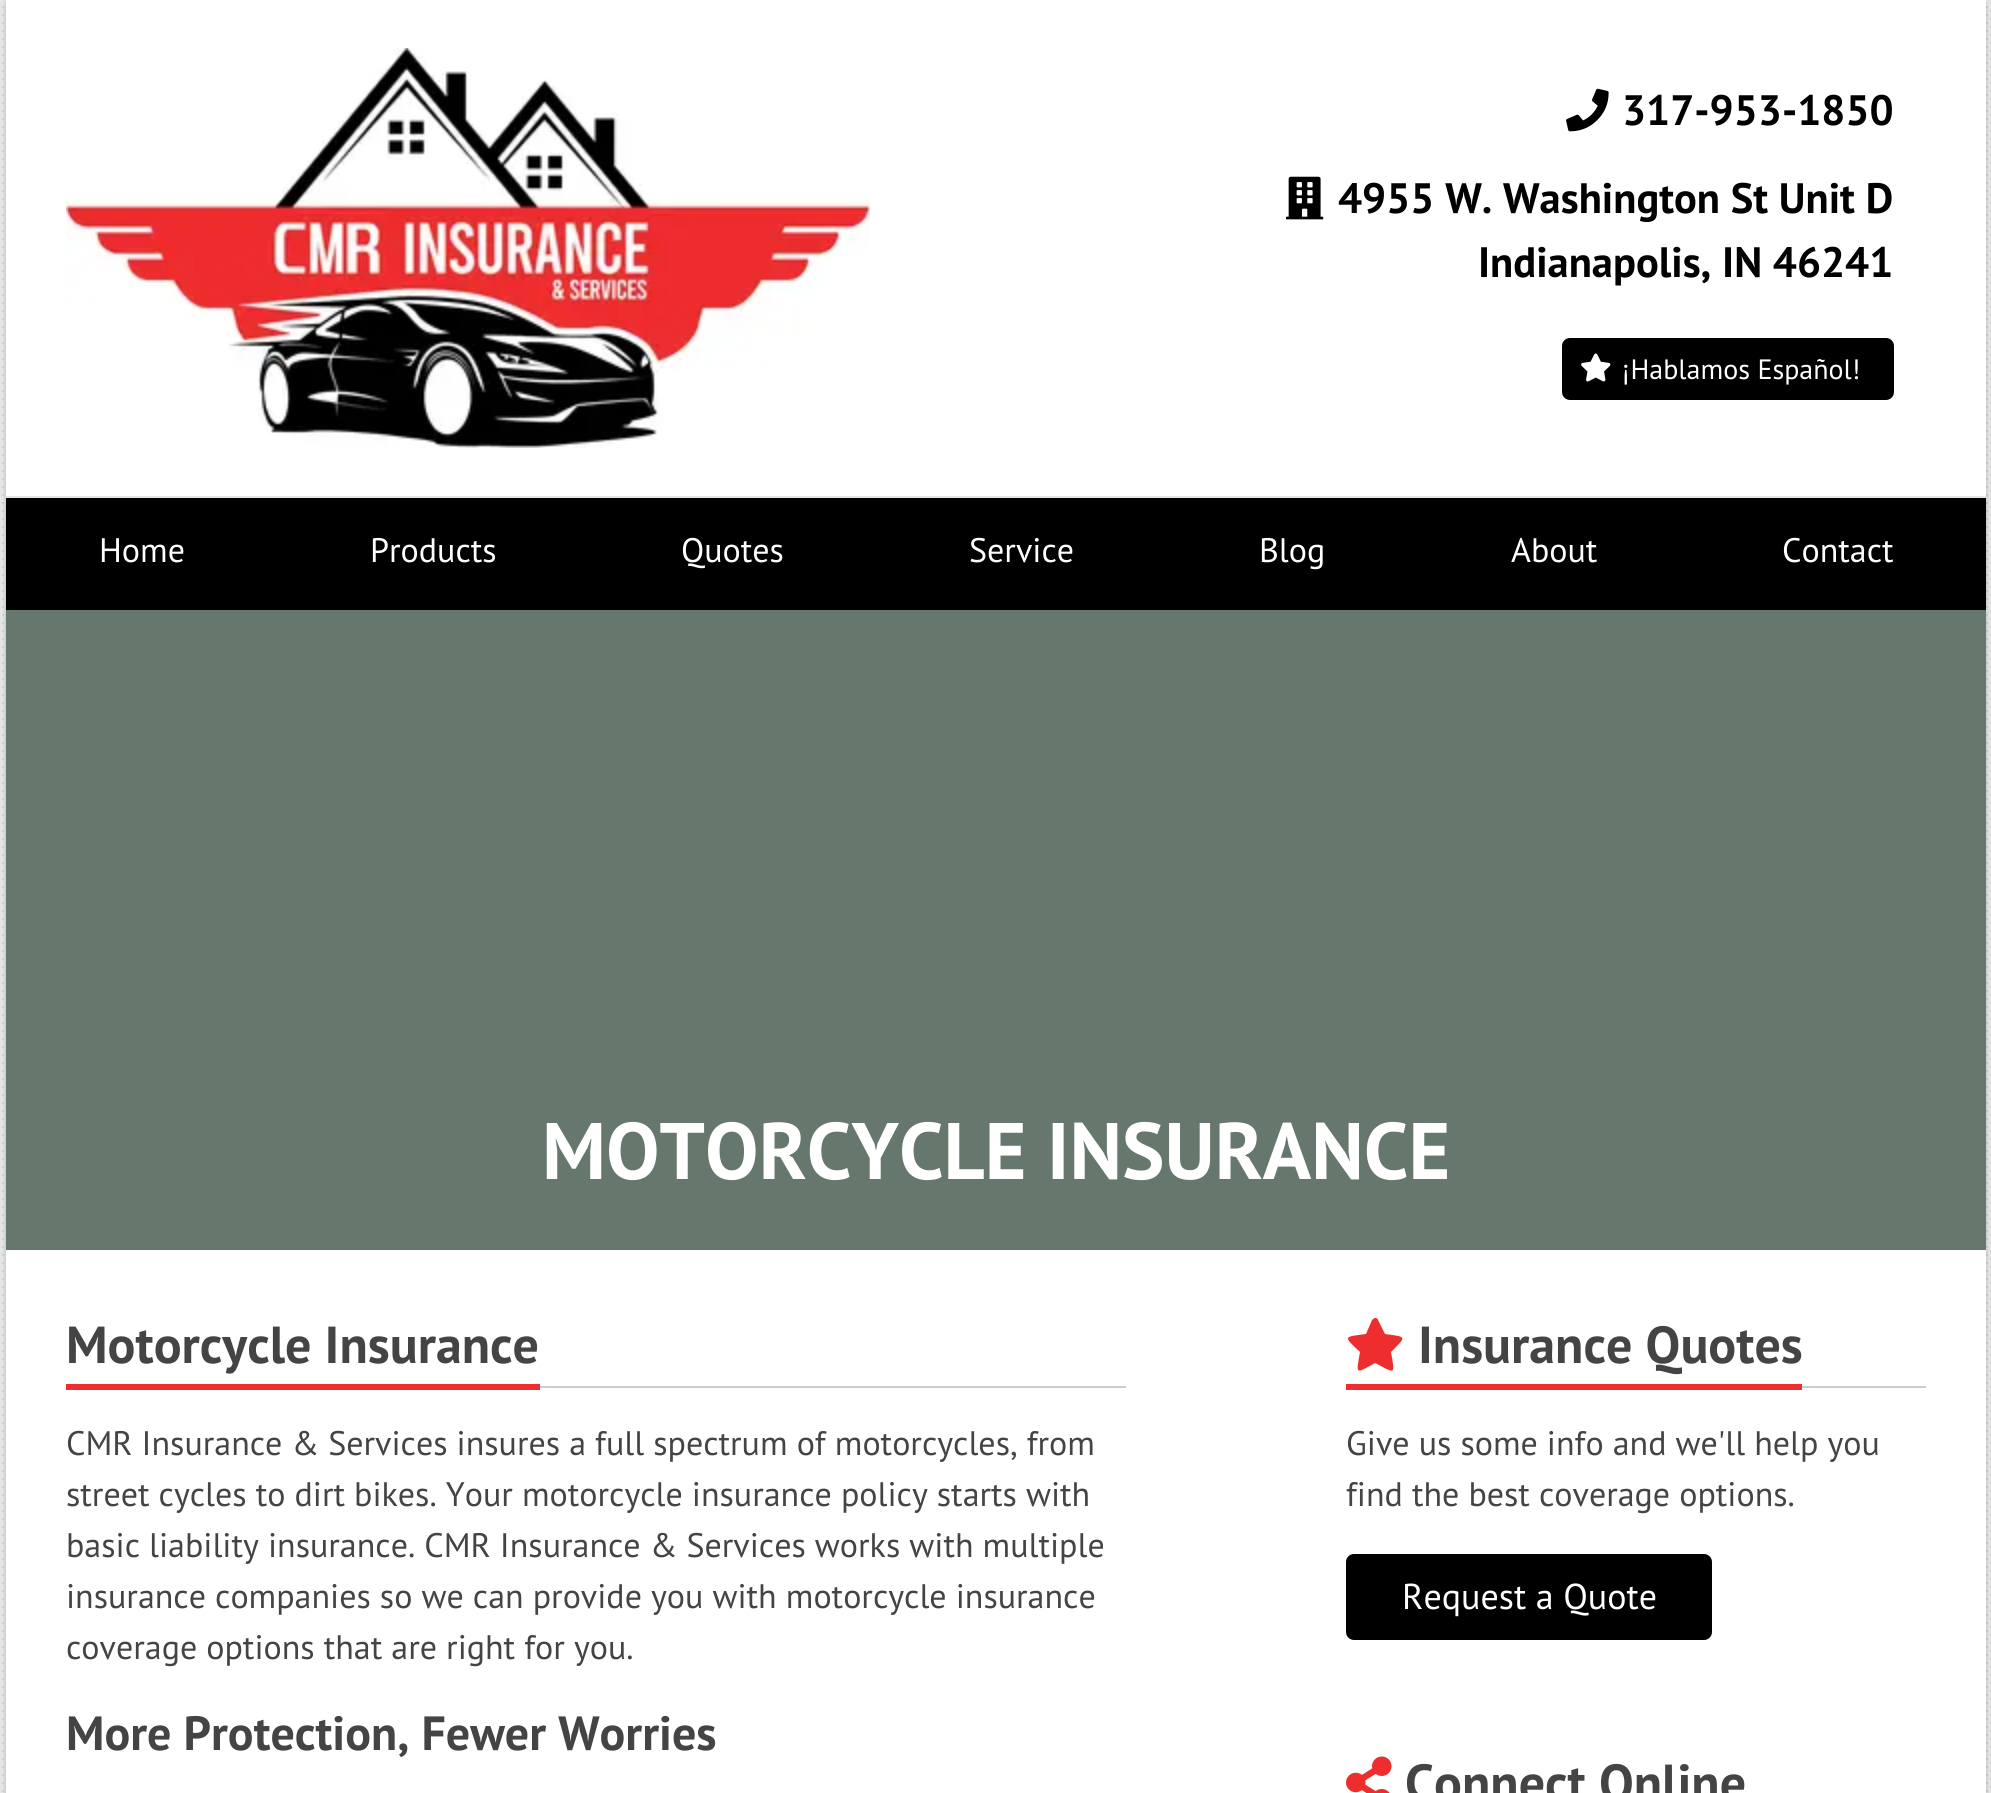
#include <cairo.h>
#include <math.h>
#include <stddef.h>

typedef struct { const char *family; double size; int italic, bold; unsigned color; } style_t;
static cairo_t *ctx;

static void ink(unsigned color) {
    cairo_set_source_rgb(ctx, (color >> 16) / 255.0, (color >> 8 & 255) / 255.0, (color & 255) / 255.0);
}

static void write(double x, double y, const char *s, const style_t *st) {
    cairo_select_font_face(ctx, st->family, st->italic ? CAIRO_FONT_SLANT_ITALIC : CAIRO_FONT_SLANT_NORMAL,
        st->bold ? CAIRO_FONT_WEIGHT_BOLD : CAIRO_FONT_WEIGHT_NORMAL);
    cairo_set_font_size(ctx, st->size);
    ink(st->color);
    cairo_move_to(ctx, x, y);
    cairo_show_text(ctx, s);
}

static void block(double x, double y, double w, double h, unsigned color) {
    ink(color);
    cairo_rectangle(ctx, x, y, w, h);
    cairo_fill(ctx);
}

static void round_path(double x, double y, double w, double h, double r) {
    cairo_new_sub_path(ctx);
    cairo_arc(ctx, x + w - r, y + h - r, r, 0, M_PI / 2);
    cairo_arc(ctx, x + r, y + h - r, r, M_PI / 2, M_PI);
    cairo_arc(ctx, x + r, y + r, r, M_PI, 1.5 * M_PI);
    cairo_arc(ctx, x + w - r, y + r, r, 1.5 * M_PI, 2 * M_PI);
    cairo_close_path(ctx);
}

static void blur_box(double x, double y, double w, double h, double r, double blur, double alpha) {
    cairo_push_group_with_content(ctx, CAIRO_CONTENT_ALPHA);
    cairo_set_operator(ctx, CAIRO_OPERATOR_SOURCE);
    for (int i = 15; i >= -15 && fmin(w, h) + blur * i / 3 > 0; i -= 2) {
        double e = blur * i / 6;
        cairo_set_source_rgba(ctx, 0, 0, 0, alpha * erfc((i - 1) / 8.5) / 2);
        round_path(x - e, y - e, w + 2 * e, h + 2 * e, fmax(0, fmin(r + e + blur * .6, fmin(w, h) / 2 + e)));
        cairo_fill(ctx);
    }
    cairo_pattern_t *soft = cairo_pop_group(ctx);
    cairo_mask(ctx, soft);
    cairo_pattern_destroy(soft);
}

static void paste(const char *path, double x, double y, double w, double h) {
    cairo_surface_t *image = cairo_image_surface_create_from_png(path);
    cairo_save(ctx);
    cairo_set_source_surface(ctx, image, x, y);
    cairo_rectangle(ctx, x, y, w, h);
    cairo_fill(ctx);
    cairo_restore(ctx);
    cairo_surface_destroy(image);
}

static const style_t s1 = {"PT Sans", 42.5, 0, 1, 0x000000};
static const style_t s2 = {"PT Sans", 28, 0, 0, 0xffffff};
static const style_t s3 = {"PT Sans", 34, 0, 0, 0xffffff};
static const style_t s4 = {"PT Sans", 80, 0, 1, 0xffffff};
static const style_t s5 = {"PT Sans", 52, 0, 1, 0x444444};
static const style_t s6 = {"PT Sans", 34, 0, 0, 0x444444};
static const style_t s7 = {"PT Sans", 48, 0, 1, 0x444444};
static const style_t s8 = {"PT Sans", 36, 0, 0, 0xffffff};

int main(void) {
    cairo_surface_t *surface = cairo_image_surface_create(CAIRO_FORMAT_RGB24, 1991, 1793);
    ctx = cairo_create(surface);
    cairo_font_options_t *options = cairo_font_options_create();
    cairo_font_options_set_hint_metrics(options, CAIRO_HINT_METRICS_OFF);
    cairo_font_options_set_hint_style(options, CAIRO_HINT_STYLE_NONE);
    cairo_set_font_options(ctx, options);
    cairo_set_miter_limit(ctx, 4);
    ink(0xf6f6f6);
    cairo_paint(ctx);
    paste("pic1.png", 2, 2, 1989, 1790);
    ink(0x000000);
    blur_box(6, 2, 1980, 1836, 0, 15, 0.2);
    blur_box(6, 2, 1980, 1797, 0, 2, 0.15);
    block(6, 0, 1980, 1793, 0xffffff);
    paste("pic2.png", 66, 48, 804, 400);
    paste("pic3.png", 1566, 88, 43, 44);
    write(1622, 125, "317-953-1850", &s1);
    paste("pic4.png", 1286, 176, 38, 44);
    write(1338, 213, "4955 W. Washington St Unit D", &s1);
    write(1478, 277, "Indianapolis, IN 46241", &s1);
    round_path(1563, 339, 330, 60, 7);
    cairo_fill_preserve(ctx);
    cairo_stroke(ctx);
    paste("pic5.png", 1581, 353, 30, 29);
    write(1622, 379, "¡Hablamos Español!", &s2);
    block(6, 496, 1980, 2, 0xe6e6e6);
    block(6, 498, 1980, 112, 0x000000);
    write(99, 562, "Home", &s3);
    write(370, 562, "Products", &s3);
    write(681, 562, "Quotes", &s3);
    write(969, 562, "Service", &s3);
    write(1259, 562, "Blog", &s3);
    write(1511, 562, "About", &s3);
    write(1782, 562, "Contact", &s3);
    block(6, 610, 1980, 640, 0x66786e);
    write(542, 1179, "MOTORCYCLE INSURANCE", &s4);
    block(540, 1386, 586, 2, 0xcccccc);
    block(66, 1384, 474, 6, 0xee2d2e);
    write(66, 1363, "Motorcycle Insurance", &s5);
    write(66, 1455, "CMR Insurance & Services insures a full spectrum of motorcycles, from", &s6);
    write(66, 1506, "street cycles to dirt bikes. Your motorcycle insurance policy starts with", &s6);
    write(66, 1557, "basic liability insurance. CMR Insurance & Services works with multiple", &s6);
    write(66, 1608, "insurance companies so we can provide you with motorcycle insurance", &s6);
    write(66, 1659, "coverage options that are right for you.", &s6);
    write(66, 1750, "More Protection, Fewer Worries", &s7);
    block(1802, 1386, 124, 2, 0xcccccc);
    block(1346, 1384, 456, 6, 0xee2d2e);
    cairo_new_path(ctx);
    cairo_move_to(ctx, 1372, 1320);
    cairo_curve_to(ctx, 1373, 1319, 1374, 1318, 1375, 1318);
    cairo_curve_to(ctx, 1377, 1318, 1378, 1319, 1378, 1320);
    cairo_line_to(ctx, 1385, 1334);
    cairo_curve_to(ctx, 1407, 1337, 1407, 1336, 1391, 1352);
    cairo_curve_to(ctx, 1395, 1375, 1396, 1374, 1375, 1363);
    cairo_curve_to(ctx, 1355, 1374, 1356, 1375, 1360, 1352);
    cairo_curve_to(ctx, 1343, 1336, 1343, 1337, 1366, 1334);
    cairo_close_path(ctx);
    cairo_fill(ctx);
    write(1418, 1363, "Insurance Quotes", &s5);
    write(1346, 1455, "Give us some info and we'll help you", &s6);
    write(1346, 1506, "find the best coverage options.", &s6);
    ink(0x000000);
    round_path(1347, 1555, 364, 84, 7);
    cairo_fill_preserve(ctx);
    cairo_stroke(ctx);
    write(1402, 1609, "Request a Quote", &s8);
    paste("pic6.png", 1346, 1756, 46, 37);
    write(1405, 1801, "Connect Online", &s5);
    cairo_surface_write_to_png(surface, "screenshot.png");
    cairo_font_options_destroy(options);
    cairo_destroy(ctx);
    cairo_surface_destroy(surface);
    return 0;
}
